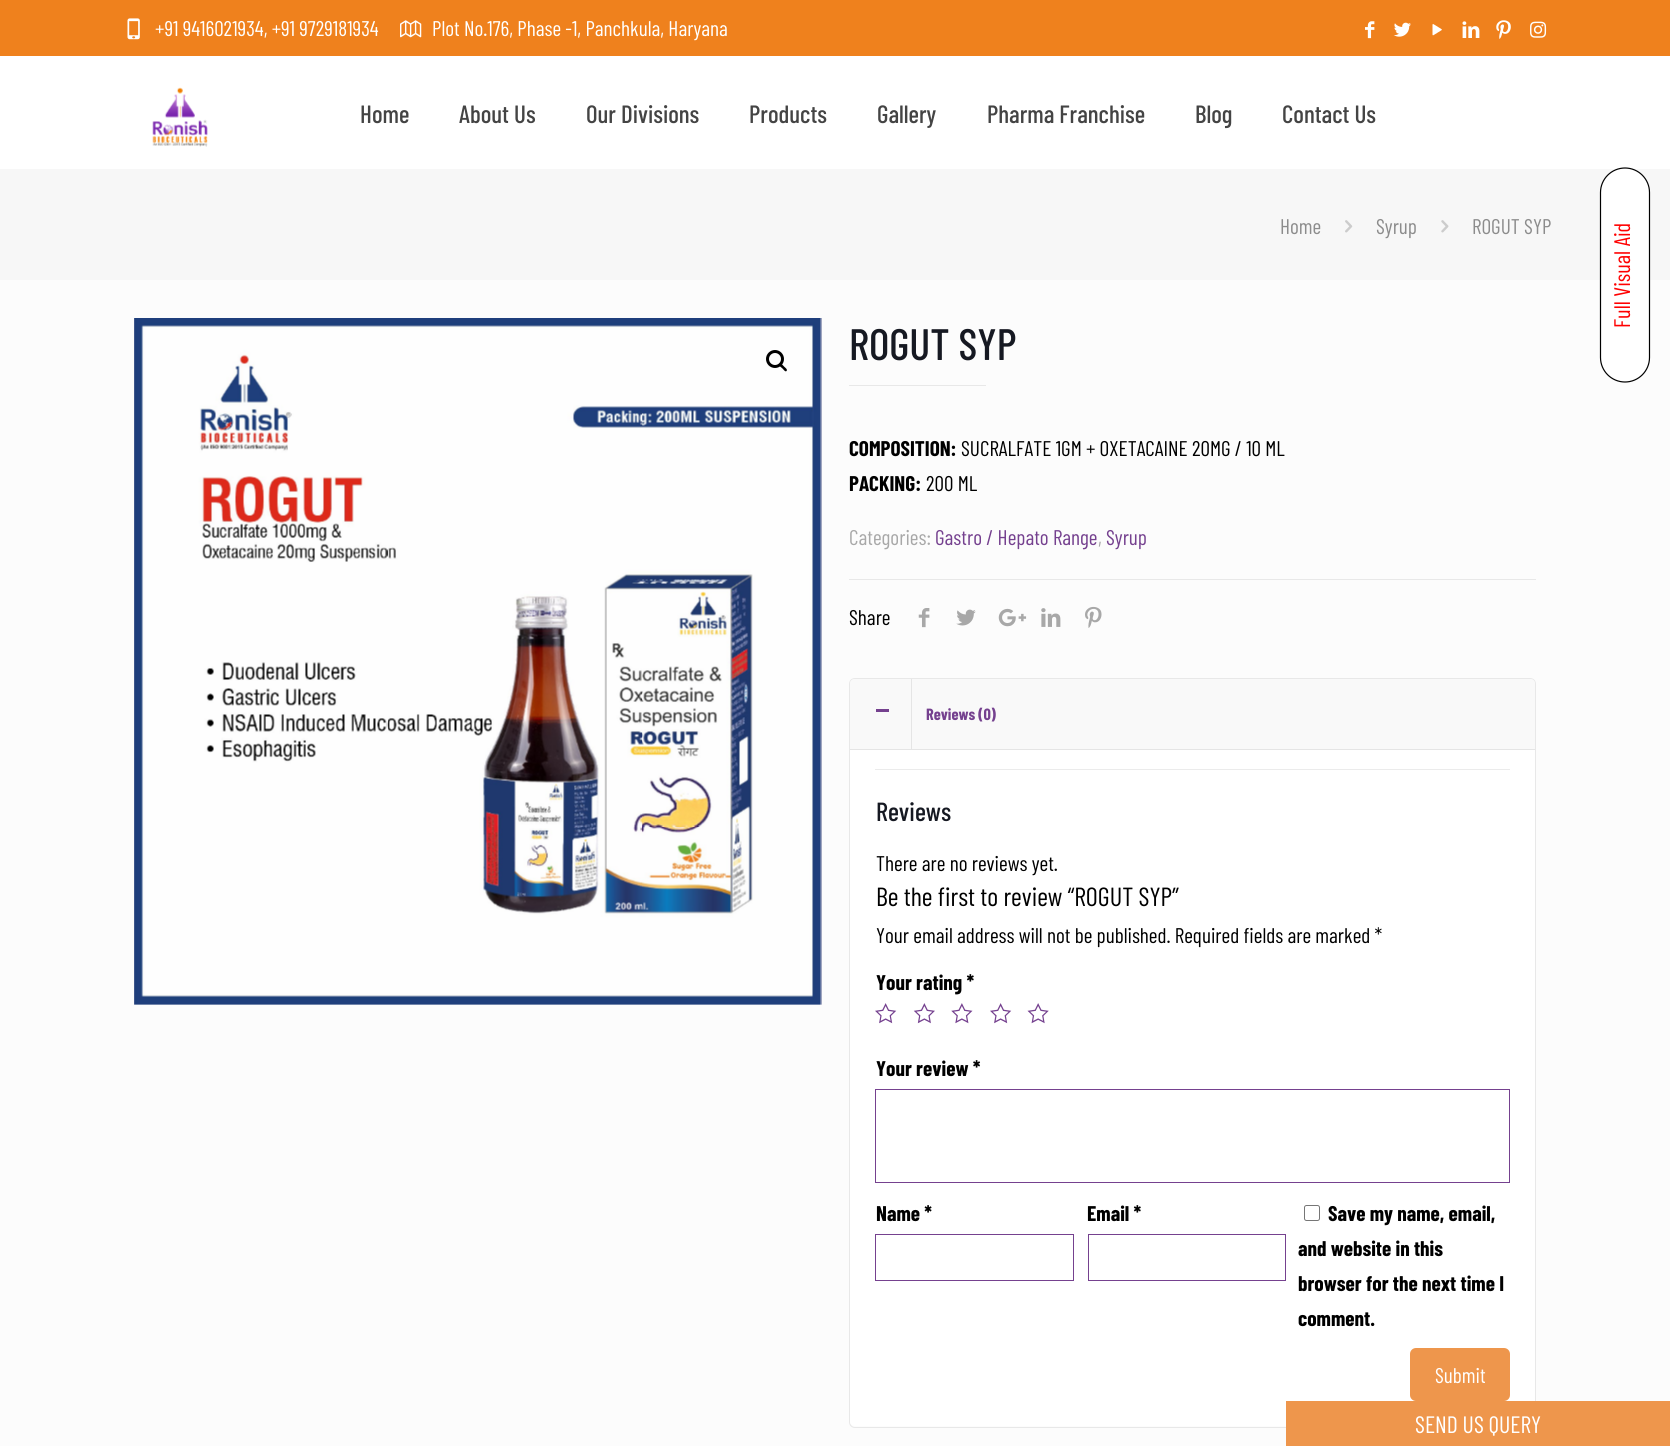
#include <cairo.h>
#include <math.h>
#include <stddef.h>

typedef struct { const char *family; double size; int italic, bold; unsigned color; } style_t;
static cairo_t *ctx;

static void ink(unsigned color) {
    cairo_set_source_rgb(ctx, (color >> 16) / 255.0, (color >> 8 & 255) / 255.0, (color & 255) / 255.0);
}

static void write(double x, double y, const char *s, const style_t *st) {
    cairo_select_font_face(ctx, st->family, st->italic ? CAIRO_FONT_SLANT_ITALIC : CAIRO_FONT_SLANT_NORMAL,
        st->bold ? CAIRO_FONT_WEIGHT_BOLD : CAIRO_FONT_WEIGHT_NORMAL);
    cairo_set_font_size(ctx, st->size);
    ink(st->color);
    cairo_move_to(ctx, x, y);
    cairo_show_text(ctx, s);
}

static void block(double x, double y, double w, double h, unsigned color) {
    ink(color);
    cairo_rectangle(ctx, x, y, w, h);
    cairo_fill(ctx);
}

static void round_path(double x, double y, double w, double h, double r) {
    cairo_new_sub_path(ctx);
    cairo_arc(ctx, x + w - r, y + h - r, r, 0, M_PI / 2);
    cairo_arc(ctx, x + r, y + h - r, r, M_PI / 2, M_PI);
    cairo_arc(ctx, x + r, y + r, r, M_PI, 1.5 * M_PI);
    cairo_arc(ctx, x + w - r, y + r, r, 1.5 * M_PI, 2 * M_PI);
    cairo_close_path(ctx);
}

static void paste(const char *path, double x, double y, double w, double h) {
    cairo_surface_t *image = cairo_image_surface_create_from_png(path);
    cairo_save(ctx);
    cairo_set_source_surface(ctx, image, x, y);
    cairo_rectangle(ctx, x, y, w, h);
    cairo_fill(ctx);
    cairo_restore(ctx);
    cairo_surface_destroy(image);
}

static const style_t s1 = {"Barlow Condensed", 21.25, 0, 0, 0xffffff};
static const style_t s2 = {"Barlow Condensed Medium", 25, 0, 0, 0x444444};
static const style_t s3 = {"Barlow Condensed", 21.25, 0, 0, 0x8c8c8c};
static const style_t s4 = {"Barlow Condensed Medium", 44, 0, 0, 0x161922};
static const style_t s5 = {"Barlow Condensed", 21.25, 0, 1, 0x000000};
static const style_t s6 = {"Barlow Condensed", 21.25, 0, 0, 0x000000};
static const style_t s7 = {"Barlow Condensed", 21.25, 0, 0, 0xa8a8a8};
static const style_t s8 = {"Barlow Condensed", 21.25, 0, 0, 0x75418f};
static const style_t s9 = {"Barlow Condensed", 16.25, 0, 1, 0x75418f};
static const style_t s10 = {"Barlow Condensed Medium", 26.25, 0, 0, 0x161922};
static const style_t s11 = {"Barlow Condensed", 26.25, 0, 0, 0x000000};
static const style_t s12 = {"Barlow Condensed", 22.5, 0, 0, 0xff0000};
static const style_t s13 = {"Barlow Condensed", 23.75, 0, 0, 0xffffff};

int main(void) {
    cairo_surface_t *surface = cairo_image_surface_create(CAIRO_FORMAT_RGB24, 1670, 1446);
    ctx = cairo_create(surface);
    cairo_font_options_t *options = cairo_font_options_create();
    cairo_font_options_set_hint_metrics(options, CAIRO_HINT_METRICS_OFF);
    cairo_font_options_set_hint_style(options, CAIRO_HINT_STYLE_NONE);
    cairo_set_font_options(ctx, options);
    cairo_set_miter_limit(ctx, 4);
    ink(0xfcfcfc);
    cairo_paint(ctx);
    block(0, 0, 1670, 56, 0xef811d);
    paste("pic1.png", 127, 18, 13, 22);
    write(155, 36, "+91 9416021934, +91 9729181934", &s1);
    paste("pic2.png", 400, 20, 22, 18);
    write(432, 36, "Plot No.176, Phase -1, Panchkula, Haryana", &s1);
    paste("pic3.png", 1365, 21, 10, 18);
    paste("pic4.png", 1393, 22, 18, 15);
    paste("pic5.png", 1432, 24, 10, 12);
    paste("pic6.png", 1462, 21, 18, 17);
    paste("pic7.png", 1496, 20, 15, 19);
    paste("pic8.png", 1530, 21, 17, 17);
    block(0, 56, 1670, 113, 0xffffff);
    paste("pic9.png", 152, 87, 56, 60);
    write(360, 123, "Home", &s2);
    write(459, 123, "About Us", &s2);
    write(586, 123, "Our Divisions", &s2);
    write(749, 123, "Products", &s2);
    write(877, 123, "Gallery", &s2);
    write(987, 123, "Pharma Franchise", &s2);
    write(1195, 123, "Blog", &s2);
    write(1282, 123, "Contact Us", &s2);
    block(0, 169, 1670, 111, 0xf7f7f7);
    write(1280, 234, "Home", &s3);
    paste("pic10.png", 1345, 220, 8, 13);
    write(1376, 234, "Syrup", &s3);
    paste("pic11.png", 1441, 220, 8, 13);
    write(1472, 234, "ROGUT SYP", &s3);
    paste("pic12.png", 134, 318, 688, 687);
    cairo_arc(ctx, 775, 359, 7.5, 0, 2 * M_PI);
    ink(0x000000);
    cairo_set_line_width(ctx, 3);
    cairo_stroke(ctx);
    cairo_new_path(ctx);
    cairo_move_to(ctx, 779.5, 364);
    cairo_curve_to(ctx, 781, 362.5, 783.5, 366, 784, 366.5);
    cairo_curve_to(ctx, 785, 367.5, 788, 369.5, 786.5, 371);
    cairo_curve_to(ctx, 785.5, 372.5, 783, 369, 782.5, 368.5);
    cairo_curve_to(ctx, 781.5, 367.5, 778, 365.5, 779.5, 364);
    cairo_close_path(ctx);
    cairo_fill(ctx);
    write(849, 360, "ROGUT SYP", &s4);
    block(849, 385, 137, 1, 0xe8e8e8);
    write(849, 456, "COMPOSITION:", &s5);
    write(961, 456, "SUCRALFATE 1GM + OXETACAINE 20MG / 10 ML", &s6);
    write(849, 491, "PACKING:", &s5);
    write(926, 491, "200 ML", &s6);
    write(849, 545, "Categories:", &s7);
    write(935, 545, "Gastro / Hepato Range", &s8);
    write(1098, 545, ",", &s7);
    write(1106, 545, "Syrup", &s8);
    block(849, 579, 687, 1, 0xe8e8e8);
    write(849, 625, "Share", &s6);
    paste("pic13.png", 918, 608, 12, 20);
    paste("pic14.png", 956, 609, 20, 17);
    paste("pic15.png", 998, 608, 29, 19);
    paste("pic16.png", 1041, 608, 20, 19);
    paste("pic17.png", 1085, 606, 17, 22);
    round_path(849.5, 678.5, 686, 749, 5.5);
    ink(0xe8e8e8);
    cairo_set_line_width(ctx, 1);
    cairo_stroke(ctx);
    ink(0xf9f9f9);
    cairo_new_path(ctx);
    cairo_move_to(ctx, 855, 679);
    cairo_line_to(ctx, 1530, 679);
    cairo_curve_to(ctx, 1533, 679, 1535, 681, 1535, 684);
    cairo_line_to(ctx, 1535, 750);
    cairo_line_to(ctx, 850, 750);
    cairo_line_to(ctx, 850, 684);
    cairo_curve_to(ctx, 850, 681, 852, 679, 855, 679);
    cairo_close_path(ctx);
    cairo_fill(ctx);
    block(850, 749, 685, 1, 0xe5e5e5);
    block(876, 709, 13, 3, 0x75418f);
    block(911, 679, 1, 70, 0xe5e5e5);
    write(926, 720, "Reviews (0)", &s9);
    ink(0xffffff);
    cairo_new_path(ctx);
    cairo_move_to(ctx, 850, 750);
    cairo_line_to(ctx, 1535, 750);
    cairo_line_to(ctx, 1535, 1421);
    cairo_curve_to(ctx, 1535, 1424, 1533, 1426, 1530, 1426);
    cairo_line_to(ctx, 855, 1426);
    cairo_curve_to(ctx, 852, 1426, 850, 1424, 850, 1421);
    cairo_close_path(ctx);
    cairo_fill(ctx);
    block(875, 769, 635, 1, 0xebebeb);
    write(876, 821, "Reviews", &s10);
    write(876, 871, "There are no reviews yet.", &s6);
    write(876, 906, "Be the first to review “ROGUT SYP”", &s11);
    write(876, 943, "Your email address will not be published. Required fields are marked *", &s6);
    write(876, 990, "Your rating *", &s5);
    paste("pic18.png", 875, 1003, 22, 21);
    paste("pic19.png", 913, 1003, 22, 21);
    paste("pic20.png", 951, 1003, 22, 21);
    paste("pic18.png", 990, 1003, 22, 21);
    paste("pic21.png", 1027, 1003, 22, 21);
    write(876, 1076, "Your review *", &s5);
    cairo_rectangle(ctx, 875.5, 1089.5, 634, 93);
    ink(0x75418f);
    cairo_stroke(ctx);
    write(876, 1221, "Name *", &s5);
    cairo_rectangle(ctx, 875.5, 1234.5, 198, 46);
    ink(0x75418f);
    cairo_stroke(ctx);
    write(1087, 1221, "Email *", &s5);
    cairo_rectangle(ctx, 1088.5, 1234.5, 197, 46);
    ink(0x75418f);
    cairo_stroke(ctx);
    round_path(1304.5, 1205.5, 15, 15, 2);
    ink(0x767676);
    cairo_stroke(ctx);
    write(1328, 1221, "Save my name, email,", &s5);
    write(1298, 1256, "and website in this", &s5);
    write(1298, 1291, "browser for the next time I", &s5);
    write(1298, 1326, "comment.", &s5);
    ink(0xee964c);
    round_path(1410, 1348, 100, 53, 6);
    cairo_fill(ctx);
    write(1435, 1383, "Submit", &s1);
    cairo_new_path(ctx);
    cairo_move_to(ctx, 1600, 358);
    cairo_line_to(ctx, 1600, 192);
    cairo_curve_to(ctx, 1600, 179, 1611, 168, 1625, 168);
    cairo_curve_to(ctx, 1639, 168, 1650, 179, 1650, 192);
    cairo_line_to(ctx, 1650, 358);
    cairo_curve_to(ctx, 1650, 371, 1639, 382, 1625, 382);
    cairo_curve_to(ctx, 1611, 382, 1600, 371, 1600, 358);
    cairo_close_path(ctx);
    cairo_fill(ctx);
    cairo_new_path(ctx);
    cairo_move_to(ctx, 1600.5, 357.5);
    cairo_line_to(ctx, 1600.5, 192.5);
    cairo_curve_to(ctx, 1600.5, 179, 1611.5, 168, 1625, 168);
    cairo_curve_to(ctx, 1638.5, 168, 1649.5, 179, 1649.5, 192.5);
    cairo_line_to(ctx, 1649.5, 357.5);
    cairo_curve_to(ctx, 1649.5, 371, 1638.5, 382, 1625, 382);
    cairo_curve_to(ctx, 1611.5, 382, 1600.5, 371, 1600.5, 357.5);
    cairo_close_path(ctx);
    ink(0x000000);
    cairo_set_line_width(ctx, 1.2);
    cairo_stroke(ctx);
    cairo_save(ctx);
    cairo_translate(ctx, 1630, 328);
    cairo_rotate(ctx, -90 * M_PI / 180);
    write(0, 0, "Full Visual Aid", &s12);
    cairo_restore(ctx);
    block(1286, 1401, 384, 45, 0xee964c);
    write(1415, 1433, "SEND US QUERY", &s13);
    cairo_surface_write_to_png(surface, "screenshot.png");
    cairo_font_options_destroy(options);
    cairo_destroy(ctx);
    cairo_surface_destroy(surface);
    return 0;
}
